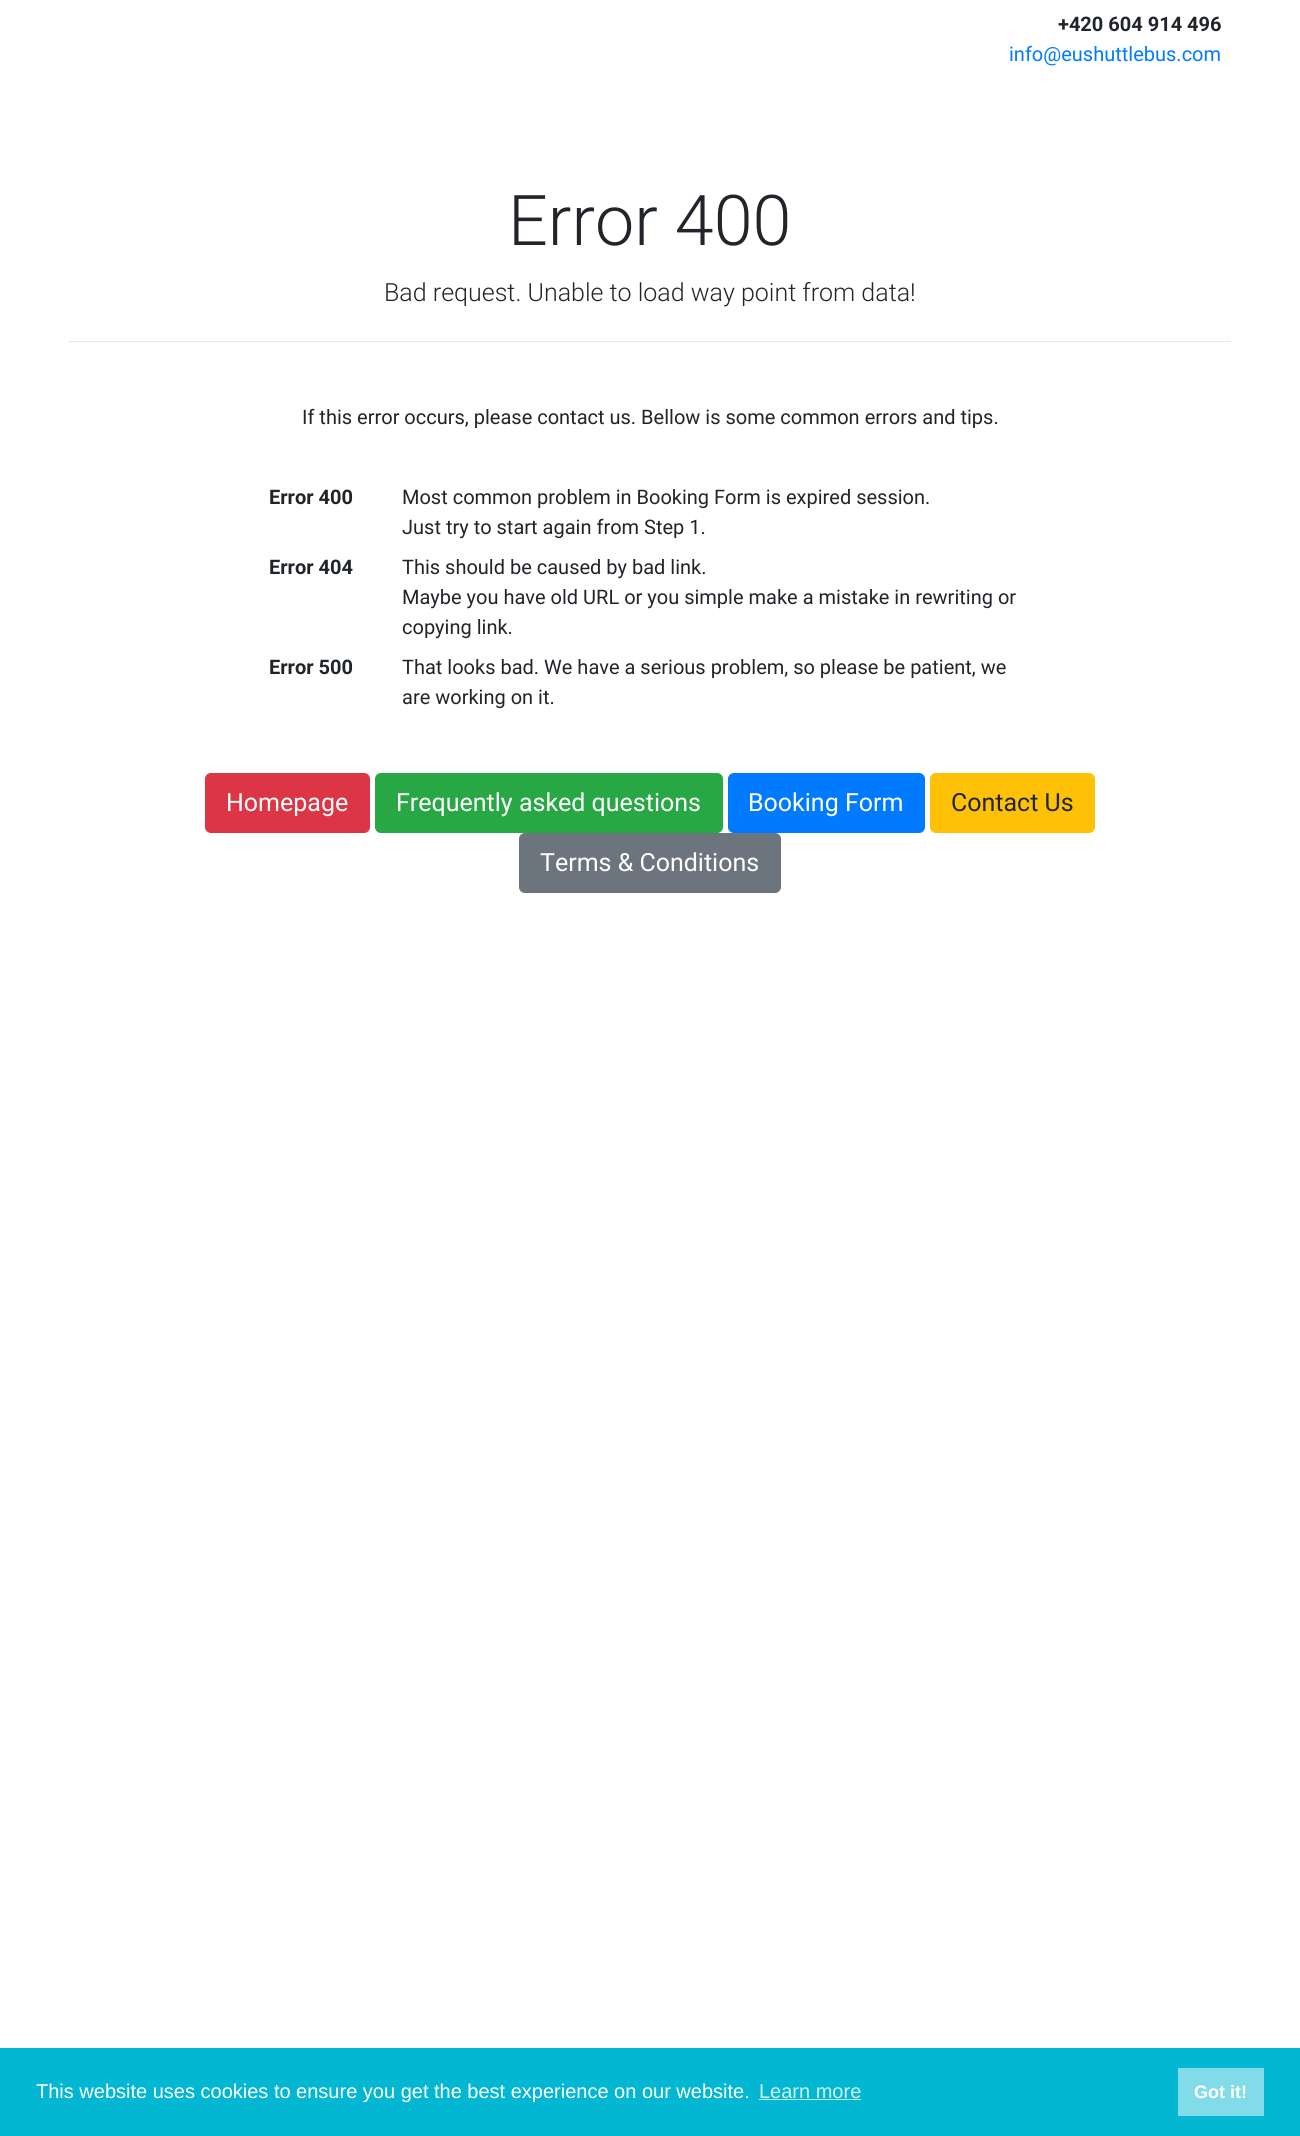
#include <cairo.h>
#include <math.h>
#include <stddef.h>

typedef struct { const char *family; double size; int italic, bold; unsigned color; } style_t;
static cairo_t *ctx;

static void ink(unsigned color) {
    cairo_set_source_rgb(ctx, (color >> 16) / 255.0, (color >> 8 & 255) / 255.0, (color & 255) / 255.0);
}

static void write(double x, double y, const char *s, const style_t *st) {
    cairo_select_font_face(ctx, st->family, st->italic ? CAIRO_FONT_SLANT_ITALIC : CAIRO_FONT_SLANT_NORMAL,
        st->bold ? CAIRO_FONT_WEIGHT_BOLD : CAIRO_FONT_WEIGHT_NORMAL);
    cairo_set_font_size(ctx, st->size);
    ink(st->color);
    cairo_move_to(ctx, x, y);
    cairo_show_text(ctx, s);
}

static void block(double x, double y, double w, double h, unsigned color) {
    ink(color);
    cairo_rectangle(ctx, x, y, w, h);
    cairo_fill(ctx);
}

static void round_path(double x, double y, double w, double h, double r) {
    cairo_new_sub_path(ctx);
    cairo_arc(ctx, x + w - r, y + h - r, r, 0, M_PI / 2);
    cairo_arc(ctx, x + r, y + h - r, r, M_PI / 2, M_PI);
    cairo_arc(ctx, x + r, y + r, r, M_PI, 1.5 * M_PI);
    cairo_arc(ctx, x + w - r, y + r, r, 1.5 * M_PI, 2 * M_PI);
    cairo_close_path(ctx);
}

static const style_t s1 = {"Roboto", 20, 0, 1, 0x212529};
static const style_t s2 = {"Roboto", 20, 0, 0, 0x007bff};
static const style_t s3 = {"Roboto Light", 70, 0, 0, 0x212529};
static const style_t s4 = {"Roboto Light", 25, 0, 0, 0x212529};
static const style_t s5 = {"Roboto", 20, 0, 0, 0x212529};
static const style_t s6 = {"Roboto", 25, 0, 0, 0xffffff};
static const style_t s7 = {"Roboto", 25, 0, 0, 0x212529};
static const style_t s8 = {"Liberation Sans", 20, 0, 0, 0xffffff};
static const style_t s9 = {"Liberation Sans", 20, 0, 0, 0xcdf1f6};
static const style_t s10 = {"Liberation Sans", 18, 0, 1, 0xffffff};

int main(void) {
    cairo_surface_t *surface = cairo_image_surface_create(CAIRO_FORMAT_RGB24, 1300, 2136);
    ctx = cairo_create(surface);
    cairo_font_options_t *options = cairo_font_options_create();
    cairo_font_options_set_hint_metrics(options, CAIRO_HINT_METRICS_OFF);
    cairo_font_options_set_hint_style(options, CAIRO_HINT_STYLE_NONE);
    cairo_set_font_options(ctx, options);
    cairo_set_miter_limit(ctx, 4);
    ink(0xffffff);
    cairo_paint(ctx);
    write(1058, 31, "+420 604 914 496", &s1);
    write(1009, 61, "info@eushuttlebus.com", &s2);
    write(508, 245, "Error 400", &s3);
    write(384, 301, "Bad request. Unable to load way point from data!", &s4);
    block(69, 341, 1162, 1, 0xe6e6e6);
    write(302, 424, "If this error occurs, please contact us. Bellow is some common errors and tips.", &s5);
    write(269, 504, "Error 400", &s1);
    write(402, 504, "Most common problem in Booking Form is expired session.", &s5);
    write(402, 534, "Just try to start again from Step 1.", &s5);
    write(269, 574, "Error 404", &s1);
    write(402, 574, "This should be caused by bad link.", &s5);
    write(402, 604, "Maybe you have old URL or you simple make a mistake in rewriting or", &s5);
    write(402, 634, "copying link.", &s5);
    write(269, 674, "Error 500", &s1);
    write(402, 674, "That looks bad. We have a serious problem, so please be patient, we", &s5);
    write(402, 704, "are working on it.", &s5);
    ink(0xdc3545);
    round_path(205.5, 773.5, 164, 59, 5.5);
    cairo_fill_preserve(ctx);
    cairo_set_line_width(ctx, 1);
    cairo_stroke(ctx);
    write(226, 811, "Homepage", &s6);
    ink(0x28a745);
    round_path(375.5, 773.5, 347, 59, 5.5);
    cairo_fill_preserve(ctx);
    cairo_stroke(ctx);
    write(396, 811, "Frequently asked questions", &s6);
    ink(0x007bff);
    round_path(728.5, 773.5, 196, 59, 5.5);
    cairo_fill_preserve(ctx);
    cairo_stroke(ctx);
    write(748, 811, "Booking Form", &s6);
    ink(0xffc107);
    round_path(930.5, 773.5, 164, 59, 5.5);
    cairo_fill_preserve(ctx);
    cairo_stroke(ctx);
    write(951, 811, "Contact Us", &s7);
    ink(0x6c757d);
    round_path(519.5, 833.5, 261, 59, 5.5);
    cairo_fill_preserve(ctx);
    cairo_stroke(ctx);
    write(540, 871, "Terms & Conditions", &s6);
    block(0, 2048, 1300, 88, 0x03b7d2);
    write(36, 2098, "This website uses cookies to ensure you get the best experience on our website.", &s8);
    write(759, 2098, "Learn more", &s9);
    block(759, 2099, 102, 1, 0xcdf1f6);
    block(1178, 2068, 86, 48, 0x81dbe8);
    write(1194, 2098, "Got it!", &s10);
    cairo_surface_write_to_png(surface, "screenshot.png");
    cairo_font_options_destroy(options);
    cairo_destroy(ctx);
    cairo_surface_destroy(surface);
    return 0;
}
